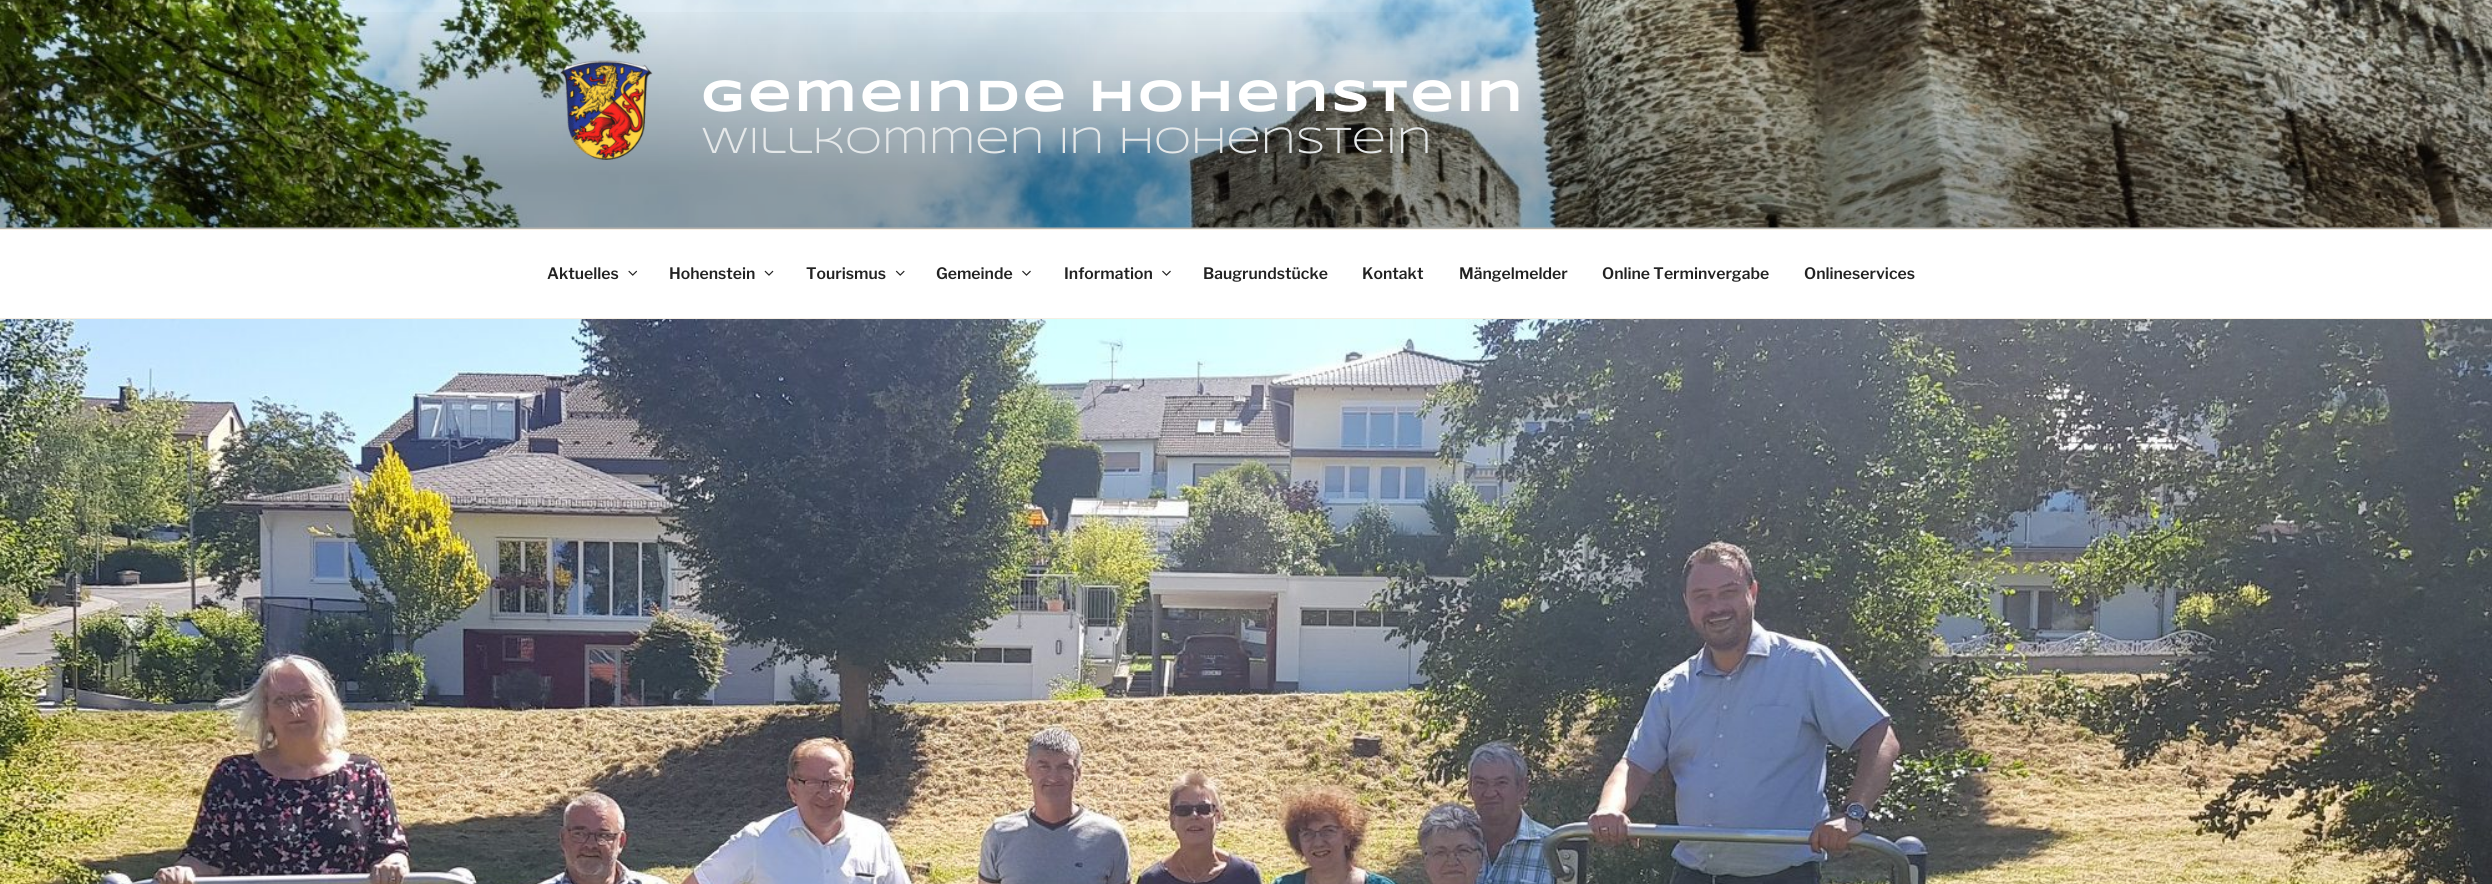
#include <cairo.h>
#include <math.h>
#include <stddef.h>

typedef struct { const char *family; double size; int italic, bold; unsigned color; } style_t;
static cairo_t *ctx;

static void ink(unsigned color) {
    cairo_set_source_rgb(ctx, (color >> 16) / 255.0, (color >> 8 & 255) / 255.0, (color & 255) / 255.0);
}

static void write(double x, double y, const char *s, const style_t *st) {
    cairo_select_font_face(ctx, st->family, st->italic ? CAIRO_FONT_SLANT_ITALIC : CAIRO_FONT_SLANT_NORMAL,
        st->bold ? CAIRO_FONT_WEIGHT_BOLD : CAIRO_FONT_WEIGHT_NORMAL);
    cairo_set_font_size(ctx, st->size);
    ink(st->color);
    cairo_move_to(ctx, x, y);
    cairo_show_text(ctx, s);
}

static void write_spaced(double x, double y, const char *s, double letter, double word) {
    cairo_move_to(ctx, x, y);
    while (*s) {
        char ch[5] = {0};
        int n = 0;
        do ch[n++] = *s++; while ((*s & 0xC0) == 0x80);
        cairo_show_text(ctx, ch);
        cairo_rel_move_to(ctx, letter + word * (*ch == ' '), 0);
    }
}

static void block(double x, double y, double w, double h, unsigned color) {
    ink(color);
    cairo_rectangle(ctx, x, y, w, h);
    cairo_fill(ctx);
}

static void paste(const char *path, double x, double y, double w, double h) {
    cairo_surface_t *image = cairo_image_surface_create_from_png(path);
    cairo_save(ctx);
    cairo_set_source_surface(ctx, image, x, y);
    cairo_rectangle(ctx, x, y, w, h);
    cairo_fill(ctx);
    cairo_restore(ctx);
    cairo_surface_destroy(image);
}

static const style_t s1 = {"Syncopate", 37.5, 0, 0, 0xe5e8e9};
static const style_t s2 = {"Libre Franklin Thin", 15.75, 0, 0, 0x222222};

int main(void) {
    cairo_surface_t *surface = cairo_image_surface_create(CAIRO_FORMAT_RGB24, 2492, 884);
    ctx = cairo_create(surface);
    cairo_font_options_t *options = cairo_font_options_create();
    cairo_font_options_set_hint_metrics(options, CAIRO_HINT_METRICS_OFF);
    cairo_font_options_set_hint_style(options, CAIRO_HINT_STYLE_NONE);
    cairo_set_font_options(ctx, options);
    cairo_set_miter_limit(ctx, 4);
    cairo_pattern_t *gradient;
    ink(0xffffff);
    cairo_paint(ctx);
    block(0, 227, 2492, 2, 0xfcfaf7);
    paste("pic1.png", 0, 0, 2492, 228);
    gradient = cairo_pattern_create_linear(1246, 0, 1246, 229);
    cairo_pattern_add_color_stop_rgba(gradient, 0, 0, 0, 0, 0);
    cairo_pattern_add_color_stop_rgba(gradient, 0.75, 0, 0, 0, 0.3);
    cairo_pattern_add_color_stop_rgba(gradient, 1, 0, 0, 0, 0.3);
    cairo_set_source(ctx, gradient);
    cairo_pattern_destroy(gradient);
    cairo_rectangle(ctx, 0, 12, 2492, 217);
    cairo_fill(ctx);
    paste("pic2.png", 560, 60, 93, 100);
    cairo_select_font_face(ctx, "Syncopate", CAIRO_FONT_SLANT_NORMAL, CAIRO_FONT_WEIGHT_BOLD);
    cairo_set_font_size(ctx, 45);
    ink(0xffffff);
    write_spaced(701, 111, "Gemeinde Hohenstein", 2.75, 0);
    write(701, 153, "Willkommen in Hohenstein", &s1);
    block(0, 229, 2492, 1, 0xf6efe4);
    block(0, 318, 2492, 1, 0xf6efe4);
    write(547, 279, "Aktuelles", &s2);
    paste("pic3.png", 628, 270, 10, 6);
    write(669, 279, "Hohenstein", &s2);
    paste("pic4.png", 764, 270, 10, 6);
    write(806, 279, "Tourismus", &s2);
    paste("pic5.png", 895, 270, 10, 6);
    write(936, 279, "Gemeinde", &s2);
    paste("pic6.png", 1022, 270, 9, 6);
    write(1064, 279, "Information", &s2);
    paste("pic6.png", 1162, 270, 9, 6);
    write(1203, 279, "Baugrundstücke", &s2);
    write(1362, 279, "Kontakt", &s2);
    write(1459, 279, "Mängelmelder", &s2);
    write(1602, 279, "Online Terminvergabe", &s2);
    write(1804, 279, "Onlineservices", &s2);
    paste("pic7.png", 0, 319, 2492, 565);
    cairo_surface_write_to_png(surface, "screenshot.png");
    cairo_font_options_destroy(options);
    cairo_destroy(ctx);
    cairo_surface_destroy(surface);
    return 0;
}
